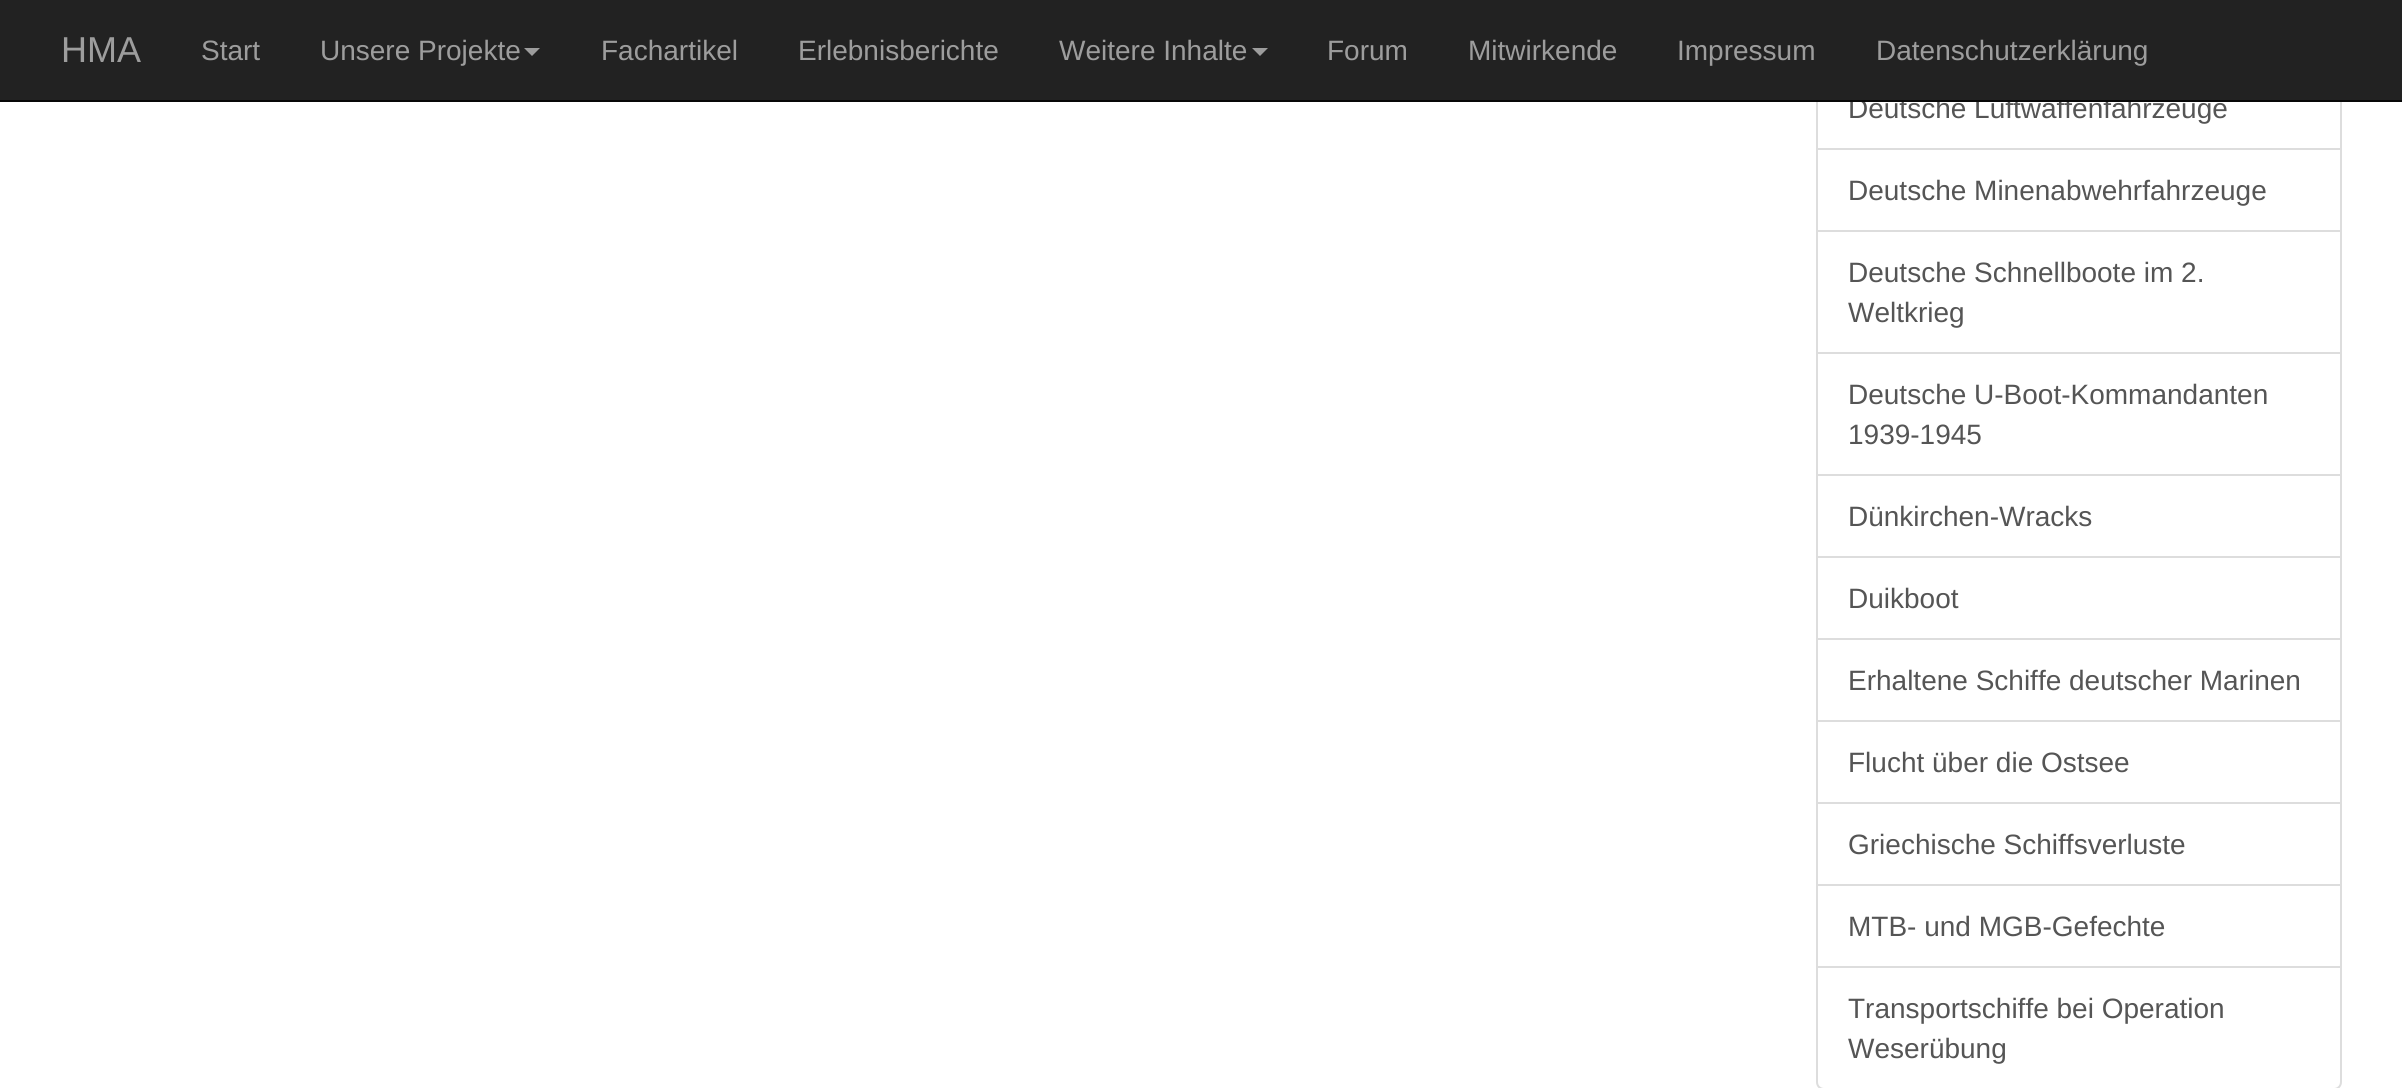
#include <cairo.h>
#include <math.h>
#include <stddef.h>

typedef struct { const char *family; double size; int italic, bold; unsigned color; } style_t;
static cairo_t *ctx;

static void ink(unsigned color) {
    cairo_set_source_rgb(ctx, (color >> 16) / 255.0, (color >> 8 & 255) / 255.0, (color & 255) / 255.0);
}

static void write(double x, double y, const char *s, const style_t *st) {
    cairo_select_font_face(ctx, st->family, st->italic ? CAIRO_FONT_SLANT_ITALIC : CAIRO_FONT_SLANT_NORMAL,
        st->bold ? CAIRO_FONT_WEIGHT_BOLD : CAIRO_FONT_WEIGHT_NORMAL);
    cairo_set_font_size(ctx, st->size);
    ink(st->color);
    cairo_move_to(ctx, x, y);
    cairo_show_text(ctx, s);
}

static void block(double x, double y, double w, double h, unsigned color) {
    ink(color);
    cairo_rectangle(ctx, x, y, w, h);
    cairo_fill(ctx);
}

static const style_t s1 = {"Liberation Sans", 28, 0, 0, 0x555555};
static const style_t s2 = {"Liberation Sans", 36, 0, 0, 0x9d9d9d};
static const style_t s3 = {"Liberation Sans", 28, 0, 0, 0x9d9d9d};

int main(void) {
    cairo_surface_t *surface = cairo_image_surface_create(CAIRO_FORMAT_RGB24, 2402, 1088);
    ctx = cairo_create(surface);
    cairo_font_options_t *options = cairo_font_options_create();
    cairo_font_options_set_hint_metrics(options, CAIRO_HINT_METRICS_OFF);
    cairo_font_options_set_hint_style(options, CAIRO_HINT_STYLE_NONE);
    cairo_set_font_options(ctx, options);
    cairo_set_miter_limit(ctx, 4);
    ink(0xffffff);
    cairo_paint(ctx);
    cairo_rectangle(ctx, 1817, 67, 524, 82);
    ink(0xdddddd);
    cairo_stroke(ctx);
    write(1848, 118, "Deutsche Luftwaffenfahrzeuge", &s1);
    block(0, 0, 2402, 100, 0x222222);
    block(0, 100, 2402, 2, 0x080808);
    write(61, 62, "HMA", &s2);
    write(201, 60, "Start", &s3);
    write(320, 60, "Unsere Projekte", &s3);
    cairo_new_path(ctx);
    cairo_move_to(ctx, 524, 48);
    cairo_line_to(ctx, 540, 48);
    cairo_line_to(ctx, 532, 56);
    cairo_close_path(ctx);
    cairo_fill(ctx);
    write(601, 60, "Fachartikel", &s3);
    write(798, 60, "Erlebnisberichte", &s3);
    write(1059, 60, "Weitere Inhalte", &s3);
    cairo_new_path(ctx);
    cairo_move_to(ctx, 1252, 48);
    cairo_line_to(ctx, 1268, 48);
    cairo_line_to(ctx, 1260, 56);
    cairo_close_path(ctx);
    cairo_fill(ctx);
    write(1327, 60, "Forum", &s3);
    write(1468, 60, "Mitwirkende", &s3);
    write(1677, 60, "Impressum", &s3);
    write(1876, 60, "Datenschutzerklärung", &s3);
    cairo_rectangle(ctx, 1817, 149, 524, 82);
    ink(0xdddddd);
    cairo_stroke(ctx);
    write(1848, 200, "Deutsche Minenabwehrfahrzeuge", &s1);
    cairo_rectangle(ctx, 1817, 231, 524, 122);
    ink(0xdddddd);
    cairo_stroke(ctx);
    write(1848, 282, "Deutsche Schnellboote im 2.", &s1);
    write(1848, 322, "Weltkrieg", &s1);
    cairo_rectangle(ctx, 1817, 353, 524, 122);
    ink(0xdddddd);
    cairo_stroke(ctx);
    write(1848, 404, "Deutsche U-Boot-Kommandanten", &s1);
    write(1848, 444, "1939-1945", &s1);
    cairo_rectangle(ctx, 1817, 475, 524, 82);
    ink(0xdddddd);
    cairo_stroke(ctx);
    write(1848, 526, "Dünkirchen-Wracks", &s1);
    cairo_rectangle(ctx, 1817, 557, 524, 82);
    ink(0xdddddd);
    cairo_stroke(ctx);
    write(1848, 608, "Duikboot", &s1);
    cairo_rectangle(ctx, 1817, 639, 524, 82);
    ink(0xdddddd);
    cairo_stroke(ctx);
    write(1848, 690, "Erhaltene Schiffe deutscher Marinen", &s1);
    cairo_rectangle(ctx, 1817, 721, 524, 82);
    ink(0xdddddd);
    cairo_stroke(ctx);
    write(1848, 772, "Flucht über die Ostsee", &s1);
    cairo_rectangle(ctx, 1817, 803, 524, 82);
    ink(0xdddddd);
    cairo_stroke(ctx);
    write(1848, 854, "Griechische Schiffsverluste", &s1);
    cairo_rectangle(ctx, 1817, 885, 524, 82);
    ink(0xdddddd);
    cairo_stroke(ctx);
    write(1848, 936, "MTB- und MGB-Gefechte", &s1);
    ink(0xffffff);
    cairo_new_path(ctx);
    cairo_move_to(ctx, 1817, 967);
    cairo_line_to(ctx, 2341, 967);
    cairo_line_to(ctx, 2341, 1082);
    cairo_curve_to(ctx, 2341, 1086, 2338, 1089, 2334, 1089);
    cairo_line_to(ctx, 1824, 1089);
    cairo_curve_to(ctx, 1820, 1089, 1817, 1086, 1817, 1082);
    cairo_close_path(ctx);
    cairo_fill_preserve(ctx);
    ink(0xdddddd);
    cairo_stroke(ctx);
    write(1848, 1018, "Transportschiffe bei Operation", &s1);
    write(1848, 1058, "Weserübung", &s1);
    cairo_surface_write_to_png(surface, "screenshot.png");
    cairo_font_options_destroy(options);
    cairo_destroy(ctx);
    cairo_surface_destroy(surface);
    return 0;
}
